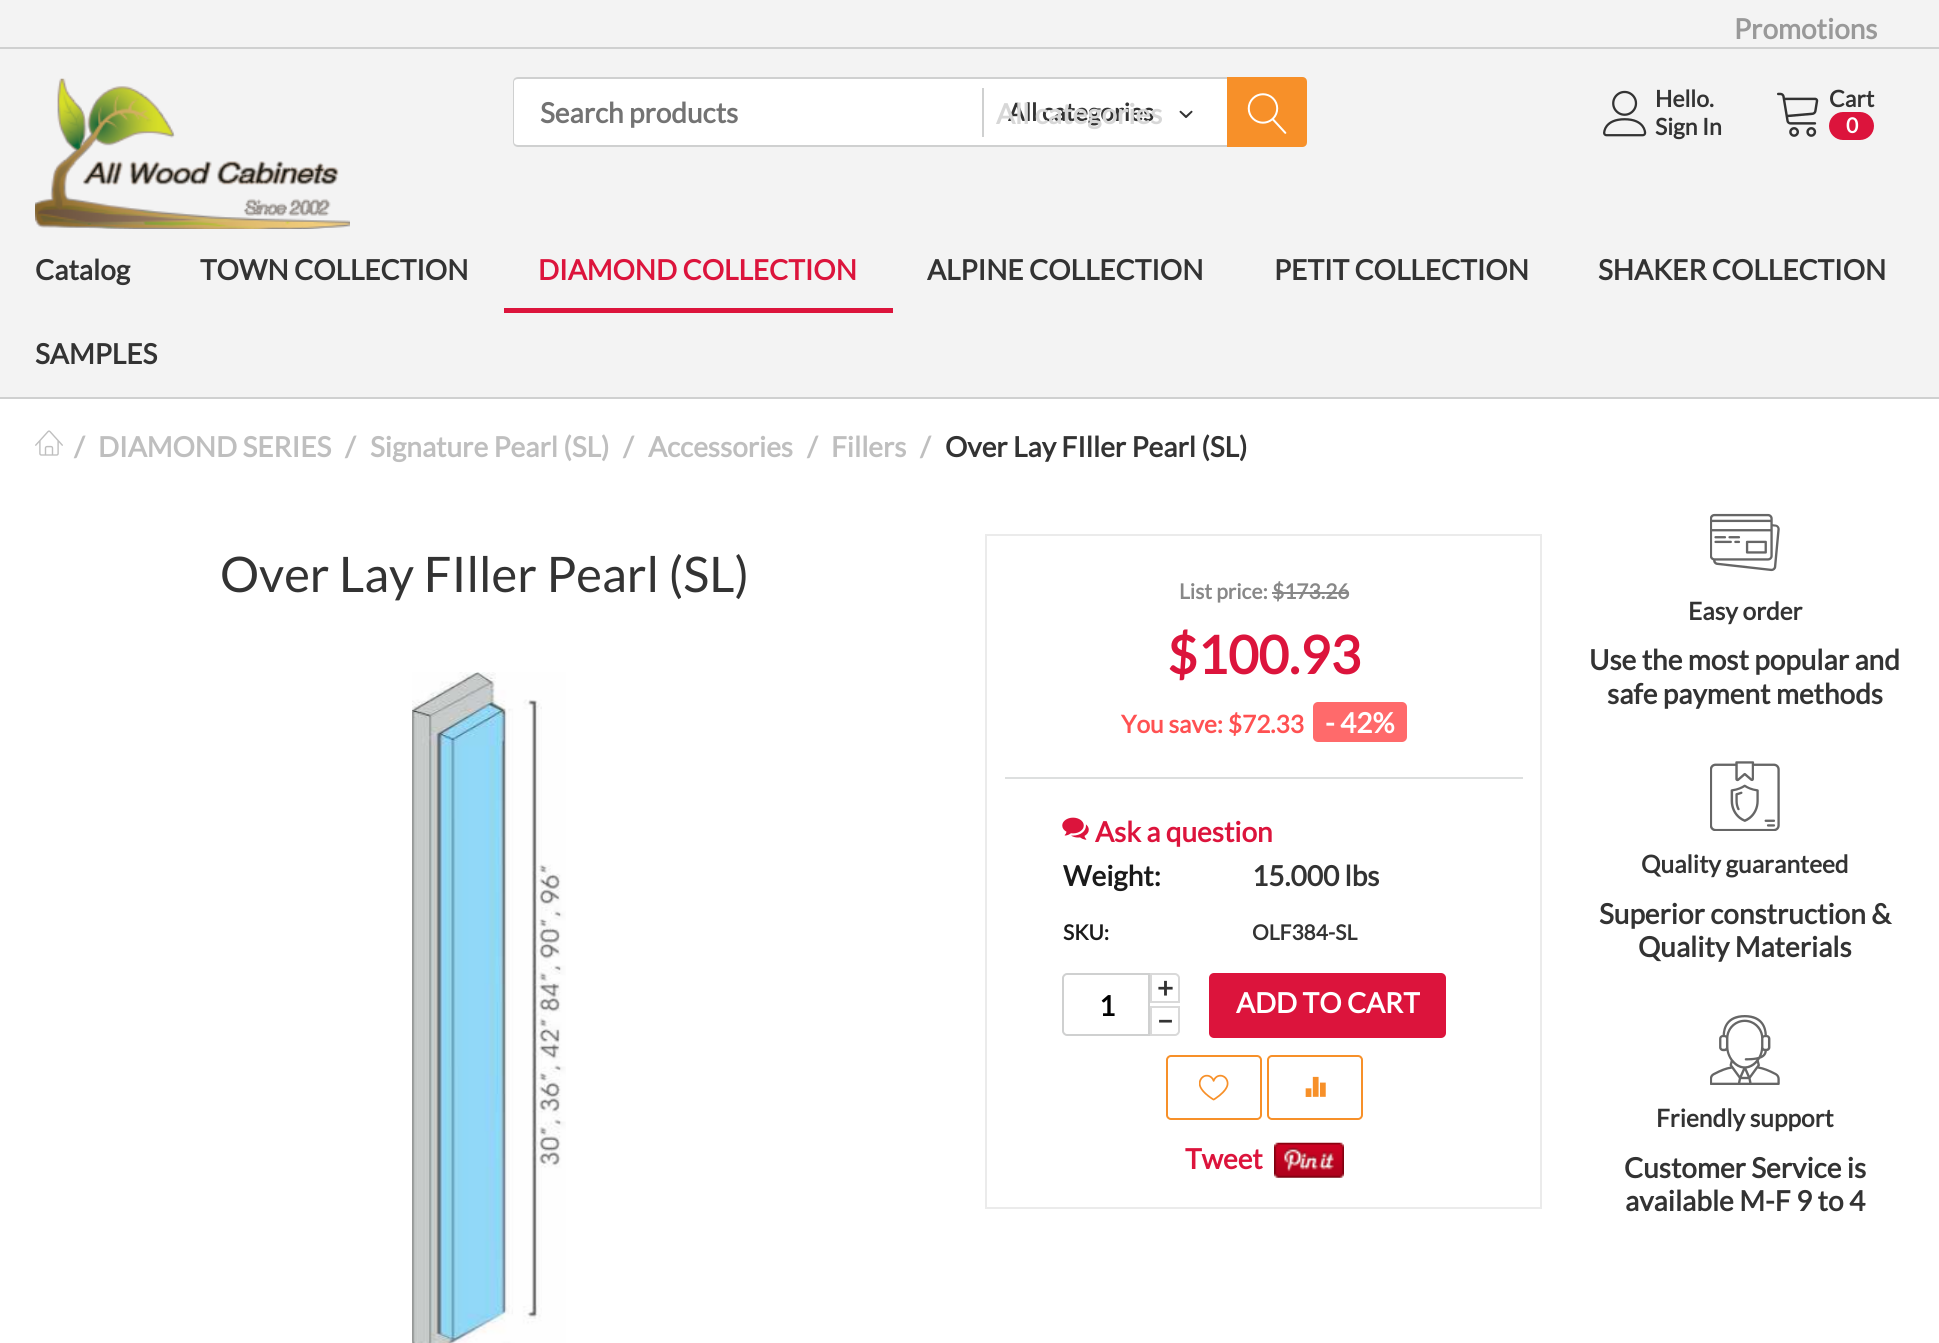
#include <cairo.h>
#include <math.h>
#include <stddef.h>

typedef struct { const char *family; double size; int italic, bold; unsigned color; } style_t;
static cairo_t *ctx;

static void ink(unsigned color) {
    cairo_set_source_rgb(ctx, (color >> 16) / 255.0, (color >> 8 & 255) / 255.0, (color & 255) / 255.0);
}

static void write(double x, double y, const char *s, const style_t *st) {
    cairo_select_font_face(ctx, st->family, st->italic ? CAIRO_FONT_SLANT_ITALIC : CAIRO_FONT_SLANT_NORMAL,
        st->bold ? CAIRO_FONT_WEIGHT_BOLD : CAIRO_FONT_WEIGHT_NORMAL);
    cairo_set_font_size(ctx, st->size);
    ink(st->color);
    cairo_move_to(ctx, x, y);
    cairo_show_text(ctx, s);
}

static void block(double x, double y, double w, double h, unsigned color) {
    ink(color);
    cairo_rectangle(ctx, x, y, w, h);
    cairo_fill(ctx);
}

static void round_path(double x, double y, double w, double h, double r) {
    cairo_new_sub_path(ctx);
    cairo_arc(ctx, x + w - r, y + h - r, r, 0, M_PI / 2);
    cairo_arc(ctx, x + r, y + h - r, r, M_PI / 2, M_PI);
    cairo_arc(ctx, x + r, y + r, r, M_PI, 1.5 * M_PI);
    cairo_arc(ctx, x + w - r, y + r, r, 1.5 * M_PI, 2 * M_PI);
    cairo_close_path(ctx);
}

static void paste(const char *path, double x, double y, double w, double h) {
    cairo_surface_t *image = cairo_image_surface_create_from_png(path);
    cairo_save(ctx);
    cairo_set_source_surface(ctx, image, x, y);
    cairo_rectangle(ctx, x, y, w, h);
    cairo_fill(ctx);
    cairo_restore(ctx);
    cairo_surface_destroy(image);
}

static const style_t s1 = {"Lato", 28, 0, 1, 0x999999};
static const style_t s2 = {"Lato", 28, 0, 1, 0x737373};
static const style_t s3 = {"Lato", 24.5, 0, 1, 0x333333};
static const style_t s4 = {"Lato", 28, 0, 1, 0xd7d7d7};
static const style_t s5 = {"Lato", 23, 0, 1, 0x333333};
static const style_t s6 = {"Lato", 21, 0, 1, 0xffffff};
static const style_t s7 = {"Lato", 28, 0, 1, 0x333333};
static const style_t s8 = {"Lato", 28, 0, 1, 0xdc143c};
static const style_t s9 = {"Lato", 28, 0, 1, 0xbfbfbf};
static const style_t s10 = {"Lato", 49, 0, 0, 0x333333};
static const style_t s11 = {"Lato", 21, 0, 1, 0x888888};
static const style_t s12 = {"Lato", 52.5, 0, 1, 0xdc143c};
static const style_t s13 = {"Lato", 24.5, 0, 1, 0xff5152};
static const style_t s14 = {"Lato", 28, 0, 1, 0xffffff};
static const style_t s15 = {"Lato", 28, 0, 1, 0x1a1a1a};
static const style_t s16 = {"Lato", 21, 0, 1, 0x1a1a1a};
static const style_t s17 = {"Lato", 21, 0, 1, 0x333333};
static const style_t s18 = {"Lato", 28, 0, 1, 0x000000};

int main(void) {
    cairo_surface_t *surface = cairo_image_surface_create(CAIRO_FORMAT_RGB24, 1939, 1343);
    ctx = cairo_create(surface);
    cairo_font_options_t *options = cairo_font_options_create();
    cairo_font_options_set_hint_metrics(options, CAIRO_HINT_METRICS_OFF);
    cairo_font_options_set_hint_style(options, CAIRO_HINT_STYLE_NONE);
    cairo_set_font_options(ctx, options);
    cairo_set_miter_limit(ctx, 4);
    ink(0xffffff);
    cairo_paint(ctx);
    block(0, 0, 1939, 47, 0xf3f3f3);
    block(0, 47, 1939, 2, 0xcfd0d0);
    write(1734, 39, "Promotions", &s1);
    block(0, 49, 1939, 348, 0xf3f3f3);
    block(0, 397, 1939, 2, 0xcfd0d0);
    paste("pic1.png", 35, 78, 315, 151);
    ink(0xffffff);
    round_path(513, 77, 794, 70, 5);
    cairo_fill(ctx);
    ink(0xcfd0d0);
    cairo_set_fill_rule(ctx, CAIRO_FILL_RULE_EVEN_ODD);
    cairo_new_path(ctx);
    cairo_move_to(ctx, 518, 77);
    cairo_line_to(ctx, 1302, 77);
    cairo_curve_to(ctx, 1305, 77, 1307, 79, 1307, 82);
    cairo_line_to(ctx, 1307, 142);
    cairo_curve_to(ctx, 1307, 145, 1305, 147, 1302, 147);
    cairo_line_to(ctx, 518, 147);
    cairo_curve_to(ctx, 515, 147, 513, 145, 513, 142);
    cairo_line_to(ctx, 513, 82);
    cairo_curve_to(ctx, 513, 79, 515, 77, 518, 77);
    cairo_close_path(ctx);
    cairo_move_to(ctx, 518, 79);
    cairo_line_to(ctx, 1302, 79);
    cairo_curve_to(ctx, 1305, 79, 1307, 80, 1307, 82);
    cairo_line_to(ctx, 1307, 142);
    cairo_curve_to(ctx, 1307, 144, 1305, 145, 1302, 145);
    cairo_line_to(ctx, 518, 145);
    cairo_curve_to(ctx, 516, 145, 514, 144, 514, 142);
    cairo_line_to(ctx, 514, 82);
    cairo_curve_to(ctx, 514, 80, 516, 79, 518, 79);
    cairo_close_path(ctx);
    cairo_fill(ctx);
    write(540, 123, "Search products", &s2);
    block(982, 88, 2, 49, 0xcfd0d0);
    write(1008, 121, "All categories", &s3);
    paste("pic2.png", 1179, 110, 14, 8);
    ink(0xf79029);
    cairo_new_path(ctx);
    cairo_move_to(ctx, 1227, 77);
    cairo_line_to(ctx, 1302, 77);
    cairo_curve_to(ctx, 1305, 77, 1307, 79, 1307, 82);
    cairo_line_to(ctx, 1307, 142);
    cairo_curve_to(ctx, 1307, 145, 1305, 147, 1302, 147);
    cairo_line_to(ctx, 1227, 147);
    cairo_close_path(ctx);
    cairo_fill(ctx);
    paste("pic3.png", 1247, 93, 40, 41);
    write(996, 124, "All categories", &s4);
    paste("pic4.png", 1603, 90, 44, 47);
    write(1655, 107, "Hello.", &s5);
    write(1655, 135, "Sign In", &s5);
    paste("pic5.png", 1777, 92, 42, 45);
    write(1829, 107, "Cart", &s5);
    ink(0xdc143c);
    round_path(1829, 112, 45, 28, 14);
    cairo_fill(ctx);
    write(1846, 133, "0", &s6);
    write(35, 280, "Catalog", &s7);
    write(200, 280, "TOWN COLLECTION", &s7);
    block(504, 308, 389, 5, 0xdc143c);
    write(538, 280, "DIAMOND COLLECTION", &s8);
    write(927, 280, "ALPINE COLLECTION", &s7);
    write(1274, 280, "PETIT COLLECTION", &s7);
    write(1598, 280, "SHAKER COLLECTION", &s7);
    write(35, 364, "SAMPLES", &s7);
    paste("pic6.png", 35, 430, 28, 26);
    write(74, 457, "/", &s9);
    write(98, 457, "DIAMOND SERIES", &s9);
    write(345, 457, "/", &s9);
    write(370, 457, "Signature Pearl (SL)", &s9);
    write(623, 457, "/", &s9);
    write(648, 457, "Accessories", &s9);
    write(807, 457, "/", &s9);
    write(831, 457, "Fillers", &s9);
    write(920, 457, "/", &s9);
    write(945, 457, "Over Lay FIller Pearl (SL)", &s7);
    write(220, 592, "Over Lay FIller Pearl (SL)", &s10);
    paste("pic7.png", 412, 672, 154, 671);
    cairo_rectangle(ctx, 986, 535, 555, 673);
    ink(0xebebeb);
    cairo_stroke(ctx);
    block(1005, 777, 518, 2, 0xdddfdf);
    write(1179, 599, "List price:", &s11);
    write(1272, 599, "$173.26", &s11);
    block(1272, 592, 77, 2, 0x888888);
    write(1167, 674, "$100.93", &s12);
    write(1121, 733, "You save: $72.33", &s13);
    ink(0xff6a6b);
    round_path(1313, 702, 94, 40, 5);
    cairo_fill(ctx);
    write(1325, 733, "- 42%", &s14);
    paste("pic8.png", 1062, 817, 27, 23);
    write(1095, 842, "Ask a question", &s8);
    write(1063, 886, "Weight:", &s15);
    write(1252, 886, "15.000 lbs", &s7);
    write(1063, 940, "SKU:", &s16);
    write(1252, 940, "OLF384-SL", &s17);
    cairo_new_path(ctx);
    cairo_move_to(ctx, 1151, 974);
    cairo_line_to(ctx, 1175, 974);
    cairo_curve_to(ctx, 1177, 974, 1179, 976, 1179, 978);
    cairo_line_to(ctx, 1179, 1002);
    cairo_line_to(ctx, 1151, 1002);
    cairo_close_path(ctx);
    ink(0xd9d9d9);
    cairo_stroke(ctx);
    write(1157, 998, "+", &s7);
    cairo_new_path(ctx);
    cairo_move_to(ctx, 1067, 974);
    cairo_line_to(ctx, 1149, 974);
    cairo_line_to(ctx, 1149, 1035);
    cairo_line_to(ctx, 1067, 1035);
    cairo_curve_to(ctx, 1065, 1035, 1063, 1033, 1063, 1031);
    cairo_line_to(ctx, 1063, 978);
    cairo_curve_to(ctx, 1063, 976, 1065, 974, 1067, 974);
    cairo_close_path(ctx);
    ink(0xcfd0d0);
    cairo_stroke(ctx);
    write(1099, 1016, "1", &s18);
    cairo_new_path(ctx);
    cairo_move_to(ctx, 1151, 1007);
    cairo_line_to(ctx, 1179, 1007);
    cairo_line_to(ctx, 1179, 1031);
    cairo_curve_to(ctx, 1179, 1033, 1177, 1035, 1175, 1035);
    cairo_line_to(ctx, 1151, 1035);
    cairo_close_path(ctx);
    ink(0xd9d9d9);
    cairo_stroke(ctx);
    write(1157, 1031, "−", &s7);
    ink(0xdc143c);
    round_path(1209, 973, 237, 65, 5);
    cairo_fill(ctx);
    write(1236, 1013, "ADD TO CART", &s14);
    round_path(1167, 1056, 94, 63, 4);
    ink(0xf79029);
    cairo_stroke(ctx);
    paste("pic9.png", 1199, 1074, 30, 27);
    round_path(1268, 1056, 94, 63, 4);
    cairo_stroke(ctx);
    paste("pic10.png", 1305, 1076, 21, 21);
    write(1185, 1169, "Tweet", &s8);
    paste("pic11.png", 1274, 1142, 70, 36);
    paste("pic12.png", 1710, 513, 70, 59);
    write(1688, 620, "Easy order", &s3);
    write(1589, 670, "Use the most popular and", &s7);
    write(1607, 704, "safe payment methods", &s7);
    paste("pic13.png", 1710, 761, 70, 70);
    write(1641, 873, "Quality guaranteed", &s3);
    write(1599, 924, "Superior construction &", &s7);
    write(1638, 957, "Quality Materials", &s7);
    paste("pic14.png", 1710, 1015, 70, 70);
    write(1656, 1127, "Friendly support", &s3);
    write(1624, 1178, "Customer Service is", &s7);
    write(1625, 1211, "available M-F 9 to 4", &s7);
    cairo_surface_write_to_png(surface, "screenshot.png");
    cairo_font_options_destroy(options);
    cairo_destroy(ctx);
    cairo_surface_destroy(surface);
    return 0;
}
